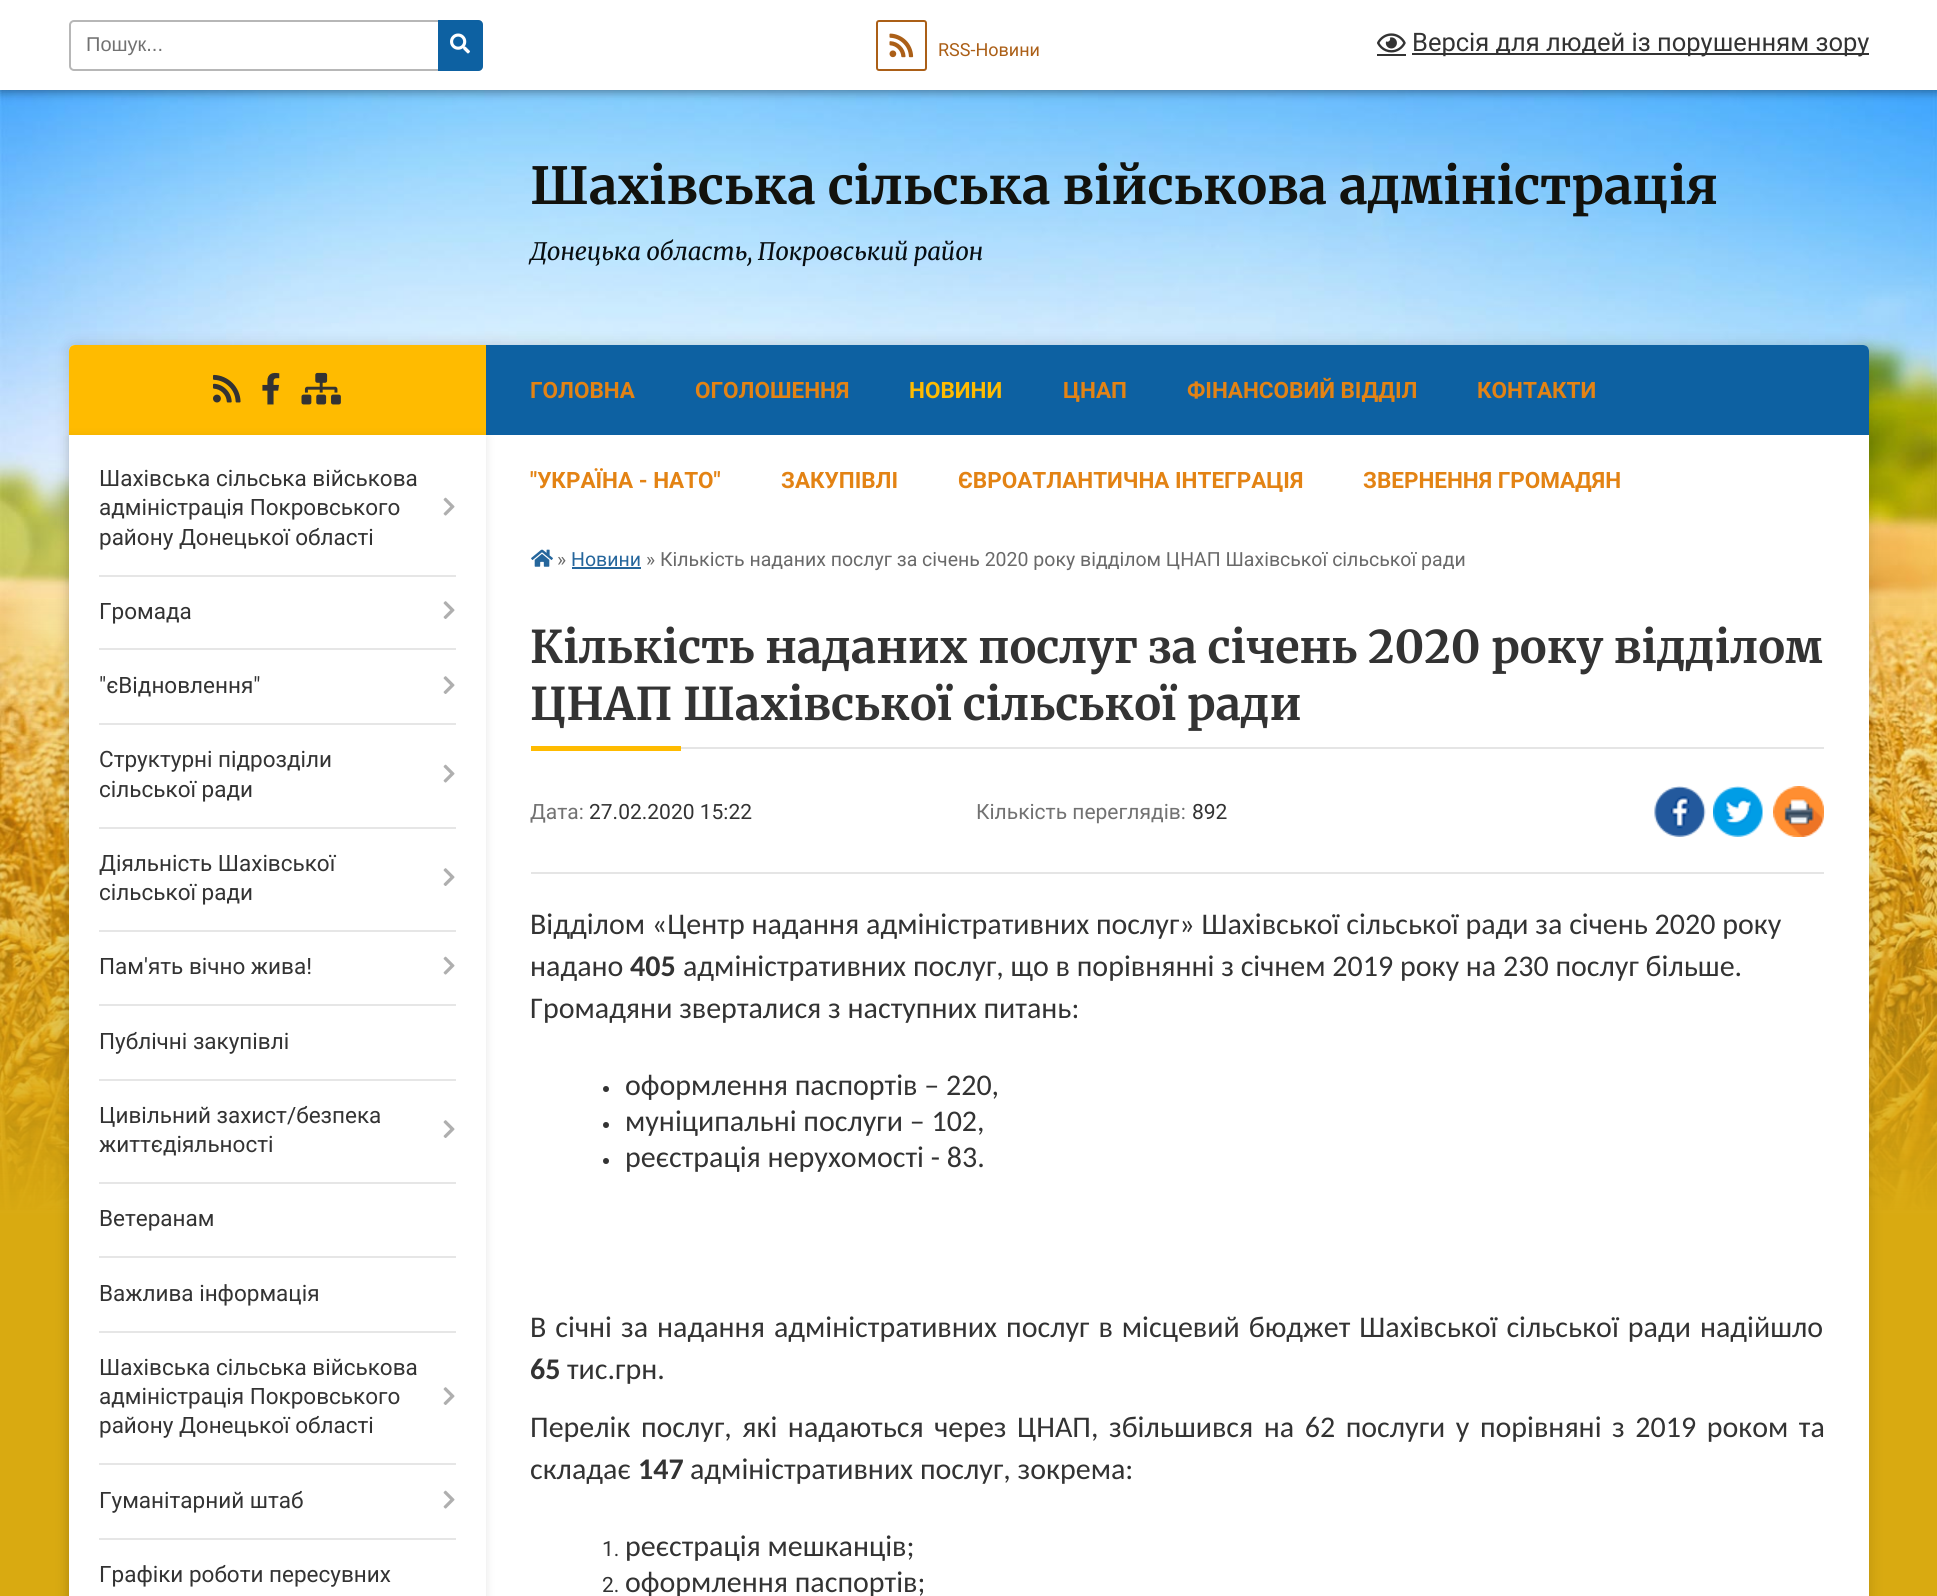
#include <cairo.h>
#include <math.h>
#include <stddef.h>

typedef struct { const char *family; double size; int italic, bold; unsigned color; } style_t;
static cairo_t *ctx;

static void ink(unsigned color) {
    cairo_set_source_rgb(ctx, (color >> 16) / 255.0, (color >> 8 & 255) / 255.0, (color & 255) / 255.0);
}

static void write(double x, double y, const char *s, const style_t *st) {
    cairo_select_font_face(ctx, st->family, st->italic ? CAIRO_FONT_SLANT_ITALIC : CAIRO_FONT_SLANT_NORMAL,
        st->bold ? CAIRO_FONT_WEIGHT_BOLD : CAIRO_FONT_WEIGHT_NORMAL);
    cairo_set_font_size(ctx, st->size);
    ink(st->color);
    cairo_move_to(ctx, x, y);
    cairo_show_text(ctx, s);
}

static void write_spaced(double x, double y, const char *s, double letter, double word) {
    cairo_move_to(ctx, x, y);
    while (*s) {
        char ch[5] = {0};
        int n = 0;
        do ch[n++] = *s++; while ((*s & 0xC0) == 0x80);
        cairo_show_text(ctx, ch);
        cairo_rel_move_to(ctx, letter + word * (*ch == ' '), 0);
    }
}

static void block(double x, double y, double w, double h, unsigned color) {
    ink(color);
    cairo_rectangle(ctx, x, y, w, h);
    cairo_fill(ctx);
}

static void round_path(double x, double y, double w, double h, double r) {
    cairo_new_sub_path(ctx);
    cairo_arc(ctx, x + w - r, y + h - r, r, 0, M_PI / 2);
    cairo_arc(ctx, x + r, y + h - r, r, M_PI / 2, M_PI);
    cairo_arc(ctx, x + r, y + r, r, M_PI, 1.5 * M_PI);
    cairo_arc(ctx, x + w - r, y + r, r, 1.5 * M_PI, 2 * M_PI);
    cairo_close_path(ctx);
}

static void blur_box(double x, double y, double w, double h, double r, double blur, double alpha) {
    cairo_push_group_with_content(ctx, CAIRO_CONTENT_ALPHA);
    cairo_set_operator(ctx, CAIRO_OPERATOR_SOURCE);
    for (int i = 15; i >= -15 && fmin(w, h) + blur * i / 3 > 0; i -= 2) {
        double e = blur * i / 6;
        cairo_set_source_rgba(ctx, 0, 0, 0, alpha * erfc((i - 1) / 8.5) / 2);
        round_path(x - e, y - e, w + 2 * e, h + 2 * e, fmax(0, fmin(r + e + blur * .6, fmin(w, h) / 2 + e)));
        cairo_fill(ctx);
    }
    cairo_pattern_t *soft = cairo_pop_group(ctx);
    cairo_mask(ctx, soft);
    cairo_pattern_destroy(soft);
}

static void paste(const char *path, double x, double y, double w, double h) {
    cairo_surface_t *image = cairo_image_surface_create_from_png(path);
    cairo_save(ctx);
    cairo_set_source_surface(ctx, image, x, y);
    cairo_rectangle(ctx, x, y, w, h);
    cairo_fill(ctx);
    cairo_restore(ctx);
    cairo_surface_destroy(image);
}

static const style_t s1 = {"Liberation Sans", 20, 0, 0, 0x727272};
static const style_t s2 = {"Roboto", 18, 0, 0, 0xab5f17};
static const style_t s3 = {"Roboto", 25.5, 0, 0, 0x333333};
static const style_t s4 = {"Merriweather Light", 51, 0, 0, 0x12120d};
static const style_t s5 = {"Merriweather Light", 24, 1, 0, 0x080e12};
static const style_t s6 = {"Roboto", 22.5, 0, 0, 0x333333};
static const style_t s7 = {"Roboto", 22.5, 0, 1, 0xe38314};
static const style_t s8 = {"Roboto", 22.5, 0, 1, 0xffbb00};
static const style_t s9 = {"Roboto", 19.5, 0, 0, 0x696969};
static const style_t s10 = {"Roboto", 19.5, 0, 0, 0x25669c};
static const style_t s11 = {"Merriweather Light", 45, 0, 0, 0x333333};
static const style_t s12 = {"Roboto", 21, 0, 0, 0x727272};
static const style_t s13 = {"Roboto", 21, 0, 0, 0x333333};
static const style_t s14 = {"Carlito", 30, 0, 0, 0x333333};
static const style_t s15 = {"Carlito", 30, 0, 1, 0x333333};

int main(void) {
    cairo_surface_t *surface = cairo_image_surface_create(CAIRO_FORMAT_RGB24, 1937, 1596);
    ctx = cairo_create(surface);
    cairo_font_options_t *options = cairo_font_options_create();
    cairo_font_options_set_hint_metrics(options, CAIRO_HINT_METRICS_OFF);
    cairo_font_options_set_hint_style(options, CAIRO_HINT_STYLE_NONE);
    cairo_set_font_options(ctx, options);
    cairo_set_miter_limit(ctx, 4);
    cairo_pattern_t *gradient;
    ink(0xffffff);
    cairo_paint(ctx);
    paste("pic1.png", 0, 90, 1937, 1121);
    gradient = cairo_pattern_create_linear(969, 0, 969, 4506);
    cairo_pattern_add_color_stop_rgba(gradient, 0.13, 0.851, 0.667, 0.067, 0);
    cairo_pattern_add_color_stop_rgba(gradient, 0.27, 0.851, 0.667, 0.067, 1);
    cairo_set_source(ctx, gradient);
    cairo_pattern_destroy(gradient);
    cairo_rectangle(ctx, 0, 599, 1937, 997);
    cairo_fill(ctx);
    ink(0x000000);
    blur_box(0, 2, 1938, 90, 0, 5, 0.4);
    block(0, 0, 1937, 90, 0xffffff);
    round_path(70, 21, 412, 49, 4);
    ink(0xb7b7b7);
    cairo_stroke(ctx);
    write(86, 51, "Пошук...", &s1);
    ink(0x0d61a2);
    cairo_new_path(ctx);
    cairo_move_to(ctx, 438, 20);
    cairo_line_to(ctx, 478, 20);
    cairo_curve_to(ctx, 481, 20, 483, 22, 483, 25);
    cairo_line_to(ctx, 483, 66);
    cairo_curve_to(ctx, 483, 69, 481, 71, 478, 71);
    cairo_line_to(ctx, 438, 71);
    cairo_close_path(ctx);
    cairo_fill(ctx);
    paste("pic2.png", 450, 33, 20, 21);
    round_path(877, 21, 49, 49, 2);
    ink(0xab5f17);
    cairo_stroke(ctx);
    paste("pic3.png", 889, 33, 25, 25);
    write(938, 56, "RSS-Новини", &s2);
    paste("pic4.png", 1377, 33, 29, 20);
    block(1377, 54, 29, 2, 0x333333);
    block(1412, 53, 457, 2, 0x333333);
    write(1412, 51, "Версія для людей із порушенням зору", &s3);
    write(530, 204, "Шахівська сільська військова адміністрація", &s4);
    write(530, 260, "Донецька область, Покровський район", &s5);
    ink(0x000000);
    blur_box(69, 345, 1800, 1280, 6, 7.5, 0.15);
    ink(0xffffff);
    round_path(69, 345, 1800, 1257, 6);
    cairo_fill(ctx);
    ink(0xffbb00);
    cairo_new_path(ctx);
    cairo_move_to(ctx, 75, 345);
    cairo_line_to(ctx, 486, 345);
    cairo_line_to(ctx, 486, 435);
    cairo_line_to(ctx, 69, 435);
    cairo_line_to(ctx, 69, 351);
    cairo_curve_to(ctx, 69, 347.5, 71.5, 345, 75, 345);
    cairo_close_path(ctx);
    cairo_fill(ctx);
    paste("pic5.png", 213, 374, 28, 29);
    paste("pic6.png", 262, 372, 18, 33);
    paste("pic7.png", 301, 372, 40, 33);
    ink(0x0d61a2);
    cairo_new_path(ctx);
    cairo_move_to(ctx, 486, 345);
    cairo_line_to(ctx, 1863, 345);
    cairo_curve_to(ctx, 1866.5, 345, 1869, 347.5, 1869, 351);
    cairo_line_to(ctx, 1869, 435);
    cairo_line_to(ctx, 486, 435);
    cairo_close_path(ctx);
    cairo_fill(ctx);
    cairo_save(ctx);
    cairo_set_fill_rule(ctx, CAIRO_FILL_RULE_EVEN_ODD);
    cairo_new_path(ctx);
    cairo_move_to(ctx, 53, 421);
    cairo_line_to(ctx, 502, 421);
    cairo_line_to(ctx, 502, 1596);
    cairo_line_to(ctx, 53, 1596);
    cairo_close_path(ctx);
    cairo_move_to(ctx, 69, 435);
    cairo_line_to(ctx, 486, 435);
    cairo_line_to(ctx, 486, 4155);
    cairo_line_to(ctx, 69, 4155);
    cairo_close_path(ctx);
    cairo_clip(ctx);
    ink(0x000000);
    blur_box(69, 437, 417, 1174, 0, 5, 0.1);
    cairo_restore(ctx);
    write(99, 486, "Шахівська сільська військова", &s6);
    write(99, 515, "адміністрація Покровського", &s6);
    write(99, 545, "району Донецької області", &s6);
    block(99, 575, 357, 2, 0xe6e6e6);
    paste("pic8.png", 443, 497, 12, 19);
    write(99, 619, "Громада", &s6);
    block(99, 648, 357, 2, 0xe6e6e6);
    paste("pic9.png", 443, 601, 12, 18);
    write(99, 693, "\"єВідновлення\"", &s6);
    block(99, 723, 357, 2, 0xe6e6e6);
    paste("pic9.png", 443, 676, 12, 18);
    write(99, 767, "Структурні підрозділи", &s6);
    write(99, 797, "сільської ради", &s6);
    block(99, 827, 357, 2, 0xe6e6e6);
    paste("pic8.png", 443, 764, 12, 19);
    write(99, 871, "Діяльність Шахівської", &s6);
    write(99, 900, "сільської ради", &s6);
    block(99, 930, 357, 2, 0xe6e6e6);
    paste("pic9.png", 443, 868, 12, 18);
    write(99, 974, "Пам'ять вічно жива!", &s6);
    block(99, 1004, 357, 2, 0xe6e6e6);
    paste("pic8.png", 443, 956, 12, 19);
    write(99, 1049, "Публічні закупівлі", &s6);
    block(99, 1079, 357, 2, 0xe6e6e6);
    write(99, 1123, "Цивільний захист/безпека", &s6);
    write(99, 1152, "життєдіяльності", &s6);
    block(99, 1182, 357, 2, 0xe6e6e6);
    paste("pic9.png", 443, 1120, 12, 18);
    write(99, 1226, "Ветеранам", &s6);
    block(99, 1256, 357, 2, 0xe6e6e6);
    write(99, 1301, "Важлива інформація", &s6);
    block(99, 1331, 357, 2, 0xe6e6e6);
    write(99, 1375, "Шахівська сільська військова", &s6);
    write(99, 1404, "адміністрація Покровського", &s6);
    write(99, 1433, "району Донецької області", &s6);
    block(99, 1463, 357, 2, 0xe6e6e6);
    paste("pic9.png", 443, 1387, 12, 18);
    write(99, 1508, "Гуманітарний штаб", &s6);
    block(99, 1538, 357, 2, 0xe6e6e6);
    paste("pic8.png", 443, 1490, 12, 19);
    write(99, 1582, "Графіки роботи пересувних", &s6);
    write(530, 398, "ГОЛОВНА", &s7);
    write(695, 398, "ОГОЛОШЕННЯ", &s7);
    write(909, 398, "НОВИНИ", &s8);
    write(1063, 398, "ЦНАП", &s7);
    write(1187, 398, "ФІНАНСОВИЙ ВІДДІЛ", &s7);
    write(1477, 398, "КОНТАКТИ", &s7);
    write(530, 488, "\"УКРАЇНА - НАТО\"", &s7);
    write(781, 488, "ЗАКУПІВЛІ", &s7);
    write(958, 488, "ЄВРОАТЛАНТИЧНА ІНТЕГРАЦІЯ", &s7);
    write(1363, 488, "ЗВЕРНЕННЯ ГРОМАДЯН", &s7);
    paste("pic10.png", 531, 549, 22, 18);
    write(557, 566, "»", &s9);
    write(571, 566, "Новини", &s10);
    block(572, 567, 69, 2, 0x25669c);
    write(646, 566, "» Кількість наданих послуг за січень 2020 року відділом ЦНАП Шахівської сільської ради", &s9);
    block(681, 747, 1143, 2, 0xe5e5e5);
    write(530, 663, "Кількість наданих послуг за січень 2020 року відділом", &s11);
    write(530, 720, "ЦНАП Шахівської сільської ради", &s11);
    block(531, 746, 150, 5, 0xffbb00);
    write(530, 819, "Дата:", &s12);
    write(589, 819, "27.02.2020 15:22", &s13);
    write(976, 819, "Кількість переглядів:", &s12);
    write(1192, 819, "892", &s13);
    paste("pic11.png", 1654, 786, 52, 51);
    paste("pic12.png", 1713, 786, 50, 51);
    paste("pic13.png", 1773, 786, 51, 51);
    block(531, 872, 1293, 2, 0xe5e5e5);
    write(530, 934, "Відділом «Центр надання адміністративних послуг» Шахівської сільської ради за січень 2020 року", &s14);
    write(530, 976, "надано", &s14);
    write(630, 976, "405", &s15);
    write(683, 976, "адміністративних послуг, що в порівнянні з січнем 2019 року на 230 послуг більше.", &s14);
    write(530, 1018, "Громадяни зверталися з наступних питань:", &s14);
    cairo_new_path(ctx);
    cairo_arc(ctx, 606, 1089, 3, 0, 2 * M_PI);
    cairo_fill(ctx);
    write(625, 1095, "оформлення паспортів – 220,", &s14);
    cairo_new_path(ctx);
    cairo_arc(ctx, 606, 1125, 3, 0, 2 * M_PI);
    cairo_fill(ctx);
    write(625, 1131, "муніципальні послуги – 102,", &s14);
    cairo_new_path(ctx);
    cairo_arc(ctx, 606, 1161, 3, 0, 2 * M_PI);
    cairo_fill(ctx);
    write(625, 1167, "реєстрація нерухомості - 83.", &s14);
    write_spaced(530, 1337, "В січні за надання адміністративних послуг в місцевий бюджет Шахівської сільської ради надійшло", 0, 2.25);
    write(530, 1379, "65", &s15);
    write(567, 1379, "тис.грн.", &s14);
    write_spaced(530, 1437, "Перелік послуг, які надаються через ЦНАП, збільшився на 62 послуги у порівняні з 2019 роком та", 0, 3.75);
    write(530, 1479, "складає", &s14);
    write(638, 1479, "147", &s15);
    write(690, 1479, "адміністративних послуг, зокрема:", &s14);
    write(602, 1556, "1.", &s13);
    write(625, 1556, "реєстрація мешканців;", &s14);
    write(602, 1592, "2.", &s13);
    write(625, 1592, "оформлення паспортів;", &s14);
    cairo_surface_write_to_png(surface, "screenshot.png");
    cairo_font_options_destroy(options);
    cairo_destroy(ctx);
    cairo_surface_destroy(surface);
    return 0;
}
